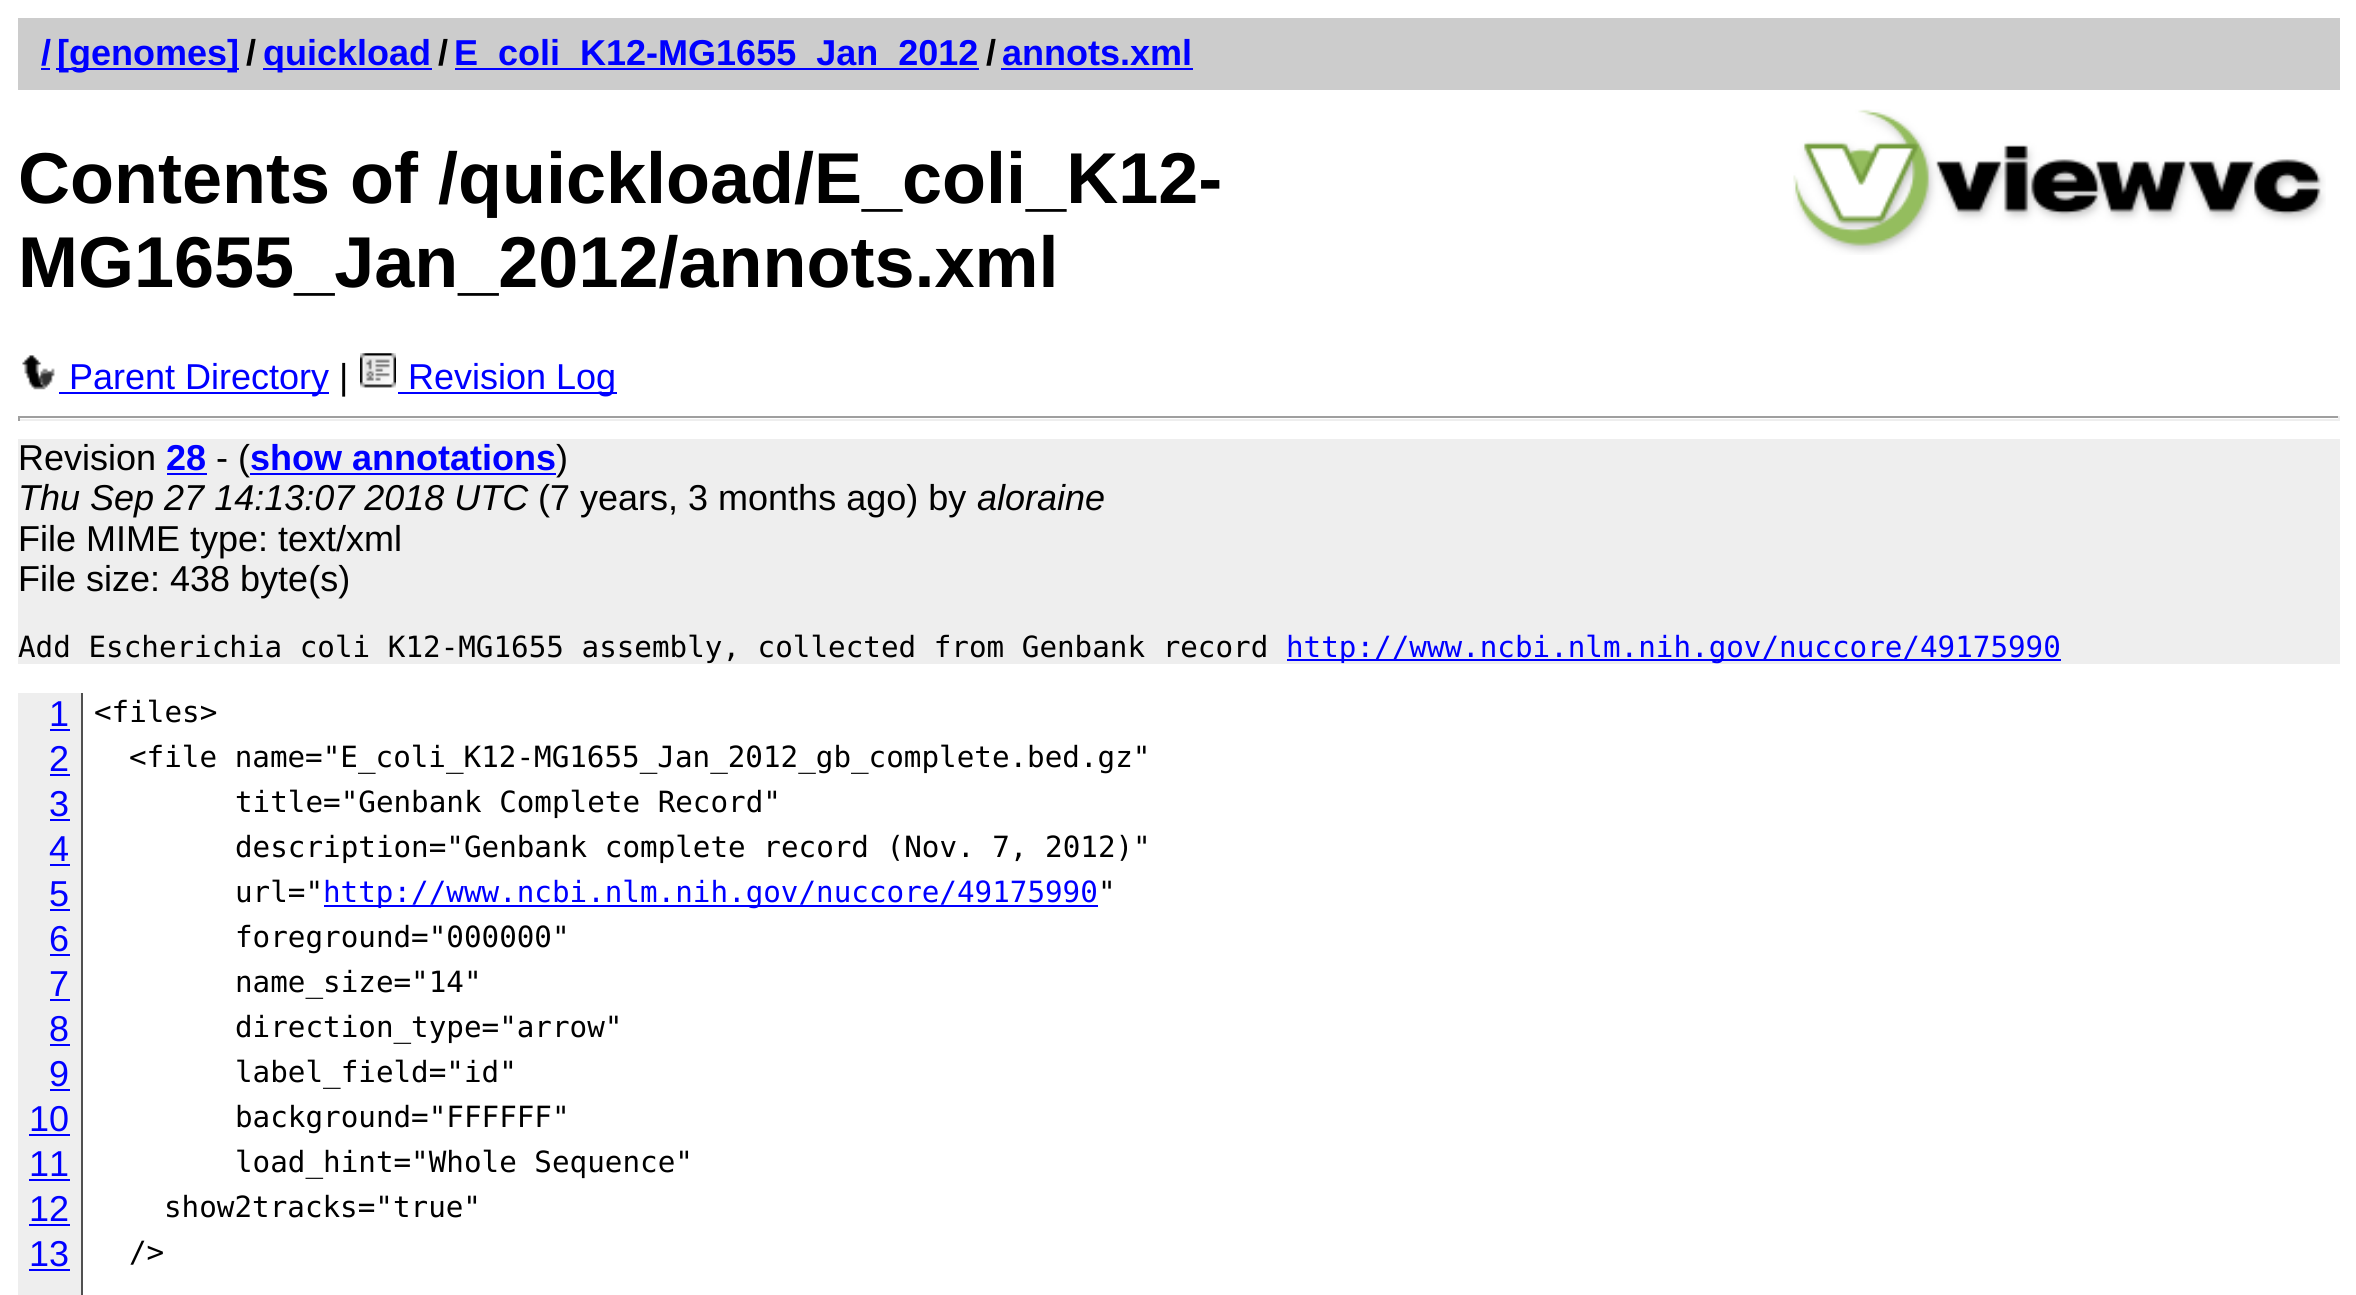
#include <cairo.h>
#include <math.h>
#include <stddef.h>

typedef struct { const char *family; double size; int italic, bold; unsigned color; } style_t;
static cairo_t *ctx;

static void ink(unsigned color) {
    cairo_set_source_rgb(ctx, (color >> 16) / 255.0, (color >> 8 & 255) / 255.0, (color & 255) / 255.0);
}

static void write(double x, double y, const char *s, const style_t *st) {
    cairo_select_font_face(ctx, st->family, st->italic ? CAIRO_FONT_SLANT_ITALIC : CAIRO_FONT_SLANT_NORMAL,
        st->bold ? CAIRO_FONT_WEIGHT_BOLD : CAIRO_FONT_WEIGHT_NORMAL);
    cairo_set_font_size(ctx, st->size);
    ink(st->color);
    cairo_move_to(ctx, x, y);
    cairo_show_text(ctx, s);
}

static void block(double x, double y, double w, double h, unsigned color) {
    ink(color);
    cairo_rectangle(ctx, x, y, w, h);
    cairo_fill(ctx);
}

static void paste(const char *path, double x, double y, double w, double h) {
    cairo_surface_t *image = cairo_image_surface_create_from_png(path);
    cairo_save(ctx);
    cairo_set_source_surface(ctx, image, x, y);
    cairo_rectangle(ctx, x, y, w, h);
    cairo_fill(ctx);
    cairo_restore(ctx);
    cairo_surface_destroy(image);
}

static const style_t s1 = {"Liberation Sans", 36, 0, 1, 0x0000ff};
static const style_t s2 = {"Liberation Sans", 36, 0, 1, 0x000000};
static const style_t s3 = {"Liberation Sans", 72, 0, 1, 0x000000};
static const style_t s4 = {"Liberation Sans", 36, 0, 0, 0x0000ff};
static const style_t s5 = {"Liberation Sans", 36, 0, 0, 0x000000};
static const style_t s6 = {"Liberation Sans", 36, 1, 0, 0x000000};
static const style_t s7 = {"DejaVu Sans Mono", 29.25, 0, 0, 0x000000};
static const style_t s8 = {"DejaVu Sans Mono", 29.25, 0, 0, 0x0000ff};

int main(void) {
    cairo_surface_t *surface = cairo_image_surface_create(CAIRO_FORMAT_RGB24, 2356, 1295);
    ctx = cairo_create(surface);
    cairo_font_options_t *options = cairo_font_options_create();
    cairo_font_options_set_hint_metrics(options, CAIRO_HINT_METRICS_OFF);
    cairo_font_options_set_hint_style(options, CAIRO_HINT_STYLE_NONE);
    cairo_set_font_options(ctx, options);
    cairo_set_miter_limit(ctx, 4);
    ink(0xffffff);
    cairo_paint(ctx);
    block(18, 18, 2322, 72, 0xcccccc);
    write(41, 65, "/", &s1);
    block(41, 68, 9, 2, 0x0000ff);
    block(56, 68, 183, 2, 0x0000ff);
    write(57, 65, "[genomes]", &s1);
    write(246, 65, "/", &s2);
    block(263, 68, 169, 2, 0x0000ff);
    write(263, 65, "quickload", &s1);
    write(438, 65, "/", &s2);
    block(455, 68, 524, 2, 0x0000ff);
    write(454, 65, "E_coli_K12-MG1655_Jan_2012", &s1);
    write(986, 65, "/", &s2);
    write(1002, 65, "annots.xml", &s1);
    block(1001, 68, 192, 2, 0x0000ff);
    write(18, 203, "Contents of /quickload/E_coli_K12-", &s3);
    write(18, 287, "MG1655_Jan_2012/annots.xml", &s3);
    paste("pic1.png", 1793, 109, 533, 146);
    paste("pic2.png", 22, 355, 33, 35);
    block(59, 392, 270, 2, 0x0000ff);
    write(69, 389, "Parent Directory", &s4);
    write(339, 389, "|", &s5);
    paste("pic3.png", 360, 353, 36, 35);
    block(398, 392, 219, 2, 0x0000ff);
    write(408, 389, "Revision Log", &s4);
    block(18, 416, 2322, 2, 0x9f9f9f);
    block(2338, 416, 2, 5, 0xeeeeee);
    block(18, 419, 2322, 2, 0xeeeeee);
    block(18, 416, 2, 5, 0x9f9f9f);
    block(18, 439, 2322, 225, 0xeeeeee);
    write(18, 470, "Revision", &s5);
    write(166, 470, "28", &s1);
    block(167, 473, 40, 2, 0x0000ff);
    write(216, 470, "- (", &s5);
    write(250, 470, "show annotations", &s1);
    block(250, 473, 306, 2, 0x0000ff);
    write(556, 470, ")", &s5);
    write(18, 510, "Thu Sep 27 14:13:07 2018 UTC", &s6);
    write(538, 510, "(7 years, 3 months ago) by", &s5);
    write(977, 510, "aloraine", &s6);
    write(18, 551, "File MIME type: text/xml", &s5);
    write(18, 591, "File size: 438 byte(s)", &s5);
    write(18, 657, "Add Escherichia coli K12-MG1655 assembly, collected from Genbank record", &s7);
    block(1287, 659, 774, 2, 0x0000ff);
    write(1286, 657, "http://www.ncbi.nlm.nih.gov/nuccore/49175990", &s8);
    block(18, 693, 63, 602, 0xeeeeee);
    block(81, 693, 2, 602, 0x505050);
    write(49, 726, "1", &s4);
    block(50, 729, 20, 2, 0x0000ff);
    write(94, 722, "<files>", &s7);
    write(49, 771, "2", &s4);
    block(50, 774, 20, 2, 0x0000ff);
    write(129, 767, "<file name=\"E_coli_K12-MG1655_Jan_2012_gb_complete.bed.gz\"", &s7);
    write(49, 816, "3", &s4);
    block(50, 819, 20, 2, 0x0000ff);
    write(235, 812, "title=\"Genbank Complete Record\"", &s7);
    write(49, 861, "4", &s4);
    block(50, 864, 20, 2, 0x0000ff);
    write(235, 857, "description=\"Genbank complete record (Nov. 7, 2012)\"", &s7);
    write(49, 906, "5", &s4);
    block(50, 909, 20, 2, 0x0000ff);
    write(235, 902, "url=\"", &s7);
    block(324, 905, 774, 2, 0x0000ff);
    write(323, 902, "http://www.ncbi.nlm.nih.gov/nuccore/49175990", &s8);
    write(1098, 902, "\"", &s7);
    write(49, 951, "6", &s4);
    block(50, 954, 20, 2, 0x0000ff);
    write(235, 947, "foreground=\"000000\"", &s7);
    write(49, 996, "7", &s4);
    block(50, 999, 20, 2, 0x0000ff);
    write(235, 992, "name_size=\"14\"", &s7);
    write(49, 1041, "8", &s4);
    block(50, 1044, 20, 2, 0x0000ff);
    write(235, 1037, "direction_type=\"arrow\"", &s7);
    write(49, 1086, "9", &s4);
    block(50, 1089, 20, 2, 0x0000ff);
    write(235, 1082, "label_field=\"id\"", &s7);
    write(29, 1131, "10", &s4);
    block(29, 1134, 41, 2, 0x0000ff);
    write(235, 1127, "background=\"FFFFFF\"", &s7);
    write(29, 1176, "11", &s4);
    block(29, 1179, 41, 2, 0x0000ff);
    write(235, 1172, "load_hint=\"Whole Sequence\"", &s7);
    write(29, 1221, "12", &s4);
    block(29, 1224, 41, 2, 0x0000ff);
    write(164, 1217, "show2tracks=\"true\"", &s7);
    write(29, 1266, "13", &s4);
    block(29, 1269, 41, 2, 0x0000ff);
    write(129, 1262, "/>", &s7);
    cairo_surface_write_to_png(surface, "screenshot.png");
    cairo_font_options_destroy(options);
    cairo_destroy(ctx);
    cairo_surface_destroy(surface);
    return 0;
}
